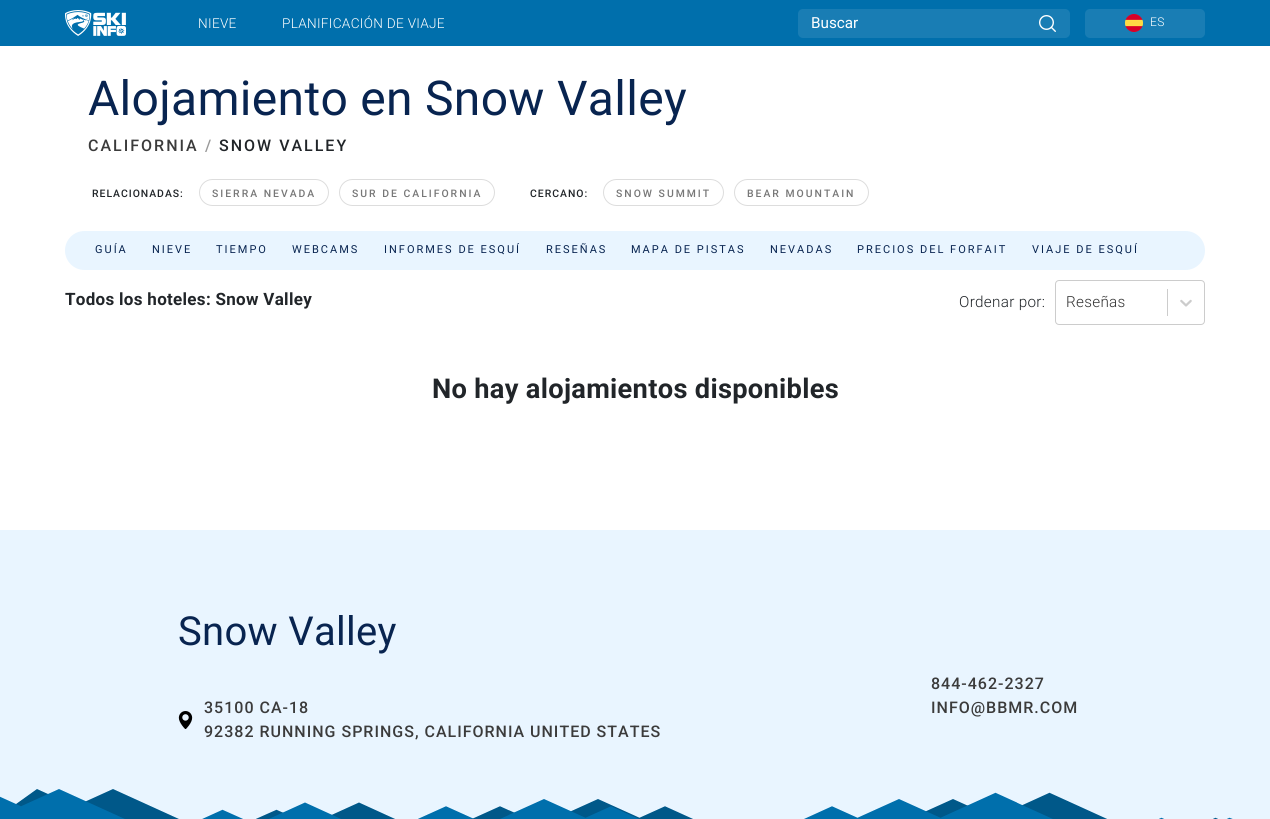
#include <cairo.h>
#include <math.h>
#include <stddef.h>

typedef struct { const char *family; double size; int italic, bold; unsigned color; } style_t;
static cairo_t *ctx;

static void ink(unsigned color) {
    cairo_set_source_rgb(ctx, (color >> 16) / 255.0, (color >> 8 & 255) / 255.0, (color & 255) / 255.0);
}

static void write(double x, double y, const char *s, const style_t *st) {
    cairo_select_font_face(ctx, st->family, st->italic ? CAIRO_FONT_SLANT_ITALIC : CAIRO_FONT_SLANT_NORMAL,
        st->bold ? CAIRO_FONT_WEIGHT_BOLD : CAIRO_FONT_WEIGHT_NORMAL);
    cairo_set_font_size(ctx, st->size);
    ink(st->color);
    cairo_move_to(ctx, x, y);
    cairo_show_text(ctx, s);
}

static void write_spaced(double x, double y, const char *s, double letter, double word) {
    cairo_move_to(ctx, x, y);
    while (*s) {
        char ch[5] = {0};
        int n = 0;
        do ch[n++] = *s++; while ((*s & 0xC0) == 0x80);
        cairo_show_text(ctx, ch);
        cairo_rel_move_to(ctx, letter + word * (*ch == ' '), 0);
    }
}

static void block(double x, double y, double w, double h, unsigned color) {
    ink(color);
    cairo_rectangle(ctx, x, y, w, h);
    cairo_fill(ctx);
}

static void round_path(double x, double y, double w, double h, double r) {
    cairo_new_sub_path(ctx);
    cairo_arc(ctx, x + w - r, y + h - r, r, 0, M_PI / 2);
    cairo_arc(ctx, x + r, y + h - r, r, M_PI / 2, M_PI);
    cairo_arc(ctx, x + r, y + r, r, M_PI, 1.5 * M_PI);
    cairo_arc(ctx, x + w - r, y + r, r, 1.5 * M_PI, 2 * M_PI);
    cairo_close_path(ctx);
}

static void paste(const char *path, double x, double y, double w, double h) {
    cairo_surface_t *image = cairo_image_surface_create_from_png(path);
    cairo_save(ctx);
    cairo_set_source_surface(ctx, image, x, y);
    cairo_rectangle(ctx, x, y, w, h);
    cairo_fill(ctx);
    cairo_restore(ctx);
    cairo_surface_destroy(image);
}

static const style_t s1 = {"Roboto", 15.25, 0, 0, 0xffffff};

int main(void) {
    cairo_surface_t *surface = cairo_image_surface_create(CAIRO_FORMAT_RGB24, 1270, 819);
    ctx = cairo_create(surface);
    cairo_font_options_t *options = cairo_font_options_create();
    cairo_font_options_set_hint_metrics(options, CAIRO_HINT_METRICS_OFF);
    cairo_font_options_set_hint_style(options, CAIRO_HINT_STYLE_NONE);
    cairo_set_font_options(ctx, options);
    cairo_set_miter_limit(ctx, 4);
    ink(0xffffff);
    cairo_paint(ctx);
    block(0, 0, 1270, 46, 0x006fac);
    paste("pic1.png", 65, 10, 61, 26);
    cairo_select_font_face(ctx, "Roboto Light", CAIRO_FONT_SLANT_NORMAL, CAIRO_FONT_WEIGHT_NORMAL);
    cairo_set_font_size(ctx, 13.6);
    ink(0xffffff);
    write_spaced(198, 28, "NIEVE", 0.3, 0);
    write_spaced(282, 28, "PLANIFICACIÓN DE VIAJE", 0.3, 0);
    ink(0x197db4);
    round_path(798, 9, 272, 29, 5);
    cairo_fill(ctx);
    write(811, 28, "Buscar", &s1);
    paste("pic2.png", 1039, 15, 17, 17);
    ink(0x197db4);
    round_path(1085, 9, 120, 29, 5);
    cairo_fill(ctx);
    paste("pic3.png", 1125, 14, 18, 18);
    cairo_select_font_face(ctx, "Roboto Light", CAIRO_FONT_SLANT_NORMAL, CAIRO_FONT_WEIGHT_NORMAL);
    cairo_set_font_size(ctx, 12);
    ink(0xffffff);
    write_spaced(1150, 26, "ES", 0.3, 0);
    cairo_select_font_face(ctx, "Roboto", CAIRO_FONT_SLANT_NORMAL, CAIRO_FONT_WEIGHT_NORMAL);
    cairo_set_font_size(ctx, 48);
    ink(0x082450);
    write_spaced(88, 115, "Alojamiento en Snow Valley", 0.3, 0);
    cairo_select_font_face(ctx, "Roboto Medium", CAIRO_FONT_SLANT_NORMAL, CAIRO_FONT_WEIGHT_NORMAL);
    cairo_set_font_size(ctx, 16);
    ink(0x3b3b3b);
    write_spaced(88, 151, "CALIFORNIA", 2, 0);
    ink(0x999999);
    write_spaced(205, 151, "/", 2, 0);
    ink(0x212529);
    write_spaced(219, 151, "SNOW VALLEY", 2, 0);
    cairo_set_font_size(ctx, 10.4);
    write_spaced(92, 197, "RELACIONADAS:", 1, 0);
    round_path(199.5, 179.5, 129, 26, 13);
    ink(0xdddddd);
    cairo_set_line_width(ctx, 1);
    cairo_stroke(ctx);
    ink(0x777777);
    write_spaced(212, 197, "SIERRA NEVADA", 2, 0);
    round_path(339.5, 179.5, 155, 26, 13);
    ink(0xdddddd);
    cairo_stroke(ctx);
    ink(0x777777);
    write_spaced(352, 197, "SUR DE CALIFORNIA", 2, 0);
    ink(0x212529);
    write_spaced(530, 197, "CERCANO:", 1, 0);
    round_path(603.5, 179.5, 120, 26, 13);
    ink(0xdddddd);
    cairo_stroke(ctx);
    ink(0x777777);
    write_spaced(616, 197, "SNOW SUMMIT", 2, 0);
    round_path(734.5, 179.5, 134, 26, 13);
    ink(0xdddddd);
    cairo_stroke(ctx);
    ink(0x777777);
    write_spaced(747, 197, "BEAR MOUNTAIN", 2, 0);
    ink(0xe9f5ff);
    round_path(65, 231, 1140, 39, 19.5);
    cairo_fill(ctx);
    cairo_select_font_face(ctx, "Roboto", CAIRO_FONT_SLANT_NORMAL, CAIRO_FONT_WEIGHT_NORMAL);
    cairo_set_font_size(ctx, 11);
    ink(0x082450);
    write_spaced(95, 253, "GUÍA", 2, 0);
    write_spaced(152, 253, "NIEVE", 2, 0);
    write_spaced(216, 253, "TIEMPO", 2, 0);
    write_spaced(292, 253, "WEBCAMS", 2, 0);
    write_spaced(384, 253, "INFORMES DE ESQUÍ", 2, 0);
    write_spaced(546, 253, "RESEÑAS", 2, 0);
    write_spaced(631, 253, "MAPA DE PISTAS", 2, 0);
    write_spaced(770, 253, "NEVADAS", 2, 0);
    write_spaced(857, 253, "PRECIOS DEL FORFAIT", 2, 0);
    write_spaced(1032, 253, "VIAJE DE ESQUÍ", 2, 0);
    cairo_select_font_face(ctx, "Roboto", CAIRO_FONT_SLANT_NORMAL, CAIRO_FONT_WEIGHT_BOLD);
    cairo_set_font_size(ctx, 17);
    ink(0x212529);
    write_spaced(65, 305, "Todos los hoteles: Snow Valley", 0.3, 0);
    cairo_select_font_face(ctx, "Roboto Light", CAIRO_FONT_SLANT_NORMAL, CAIRO_FONT_WEIGHT_NORMAL);
    cairo_set_font_size(ctx, 15.25);
    write_spaced(959, 307, "Ordenar por:", 0.3, 0);
    round_path(1055.5, 280.5, 149, 44, 3.5);
    ink(0xcccccc);
    cairo_stroke(ctx);
    ink(0x333333);
    write_spaced(1066, 307, "Reseñas", 0.3, 0);
    block(1167, 289, 1, 27, 0xcccccc);
    paste("pic4.png", 1180, 299, 12, 8);
    cairo_select_font_face(ctx, "Roboto", CAIRO_FONT_SLANT_NORMAL, CAIRO_FONT_WEIGHT_BOLD);
    cairo_set_font_size(ctx, 27.25);
    ink(0x212529);
    write_spaced(432, 398, "No hay alojamientos disponibles", 0.3, 0);
    block(0, 530, 1270, 289, 0xe9f5ff);
    paste("pic5.png", 0, 789, 1233, 30);
    cairo_select_font_face(ctx, "Roboto", CAIRO_FONT_SLANT_NORMAL, CAIRO_FONT_WEIGHT_NORMAL);
    cairo_set_font_size(ctx, 40);
    ink(0x082450);
    write_spaced(178, 645, "Snow Valley", 0.3, 0);
    paste("pic6.png", 178, 711, 15, 18);
    cairo_select_font_face(ctx, "Roboto Medium", CAIRO_FONT_SLANT_NORMAL, CAIRO_FONT_WEIGHT_NORMAL);
    cairo_set_font_size(ctx, 16);
    ink(0x3b3b3b);
    write_spaced(204, 713, "35100 CA-18", 1, 0);
    write_spaced(204, 737, "92382 RUNNING SPRINGS, CALIFORNIA UNITED STATES", 1, 0);
    write_spaced(931, 689, "844-462-2327", 1, 0);
    write_spaced(931, 713, "INFO@BBMR.COM", 1, 0);
    cairo_surface_write_to_png(surface, "screenshot.png");
    cairo_font_options_destroy(options);
    cairo_destroy(ctx);
    cairo_surface_destroy(surface);
    return 0;
}
